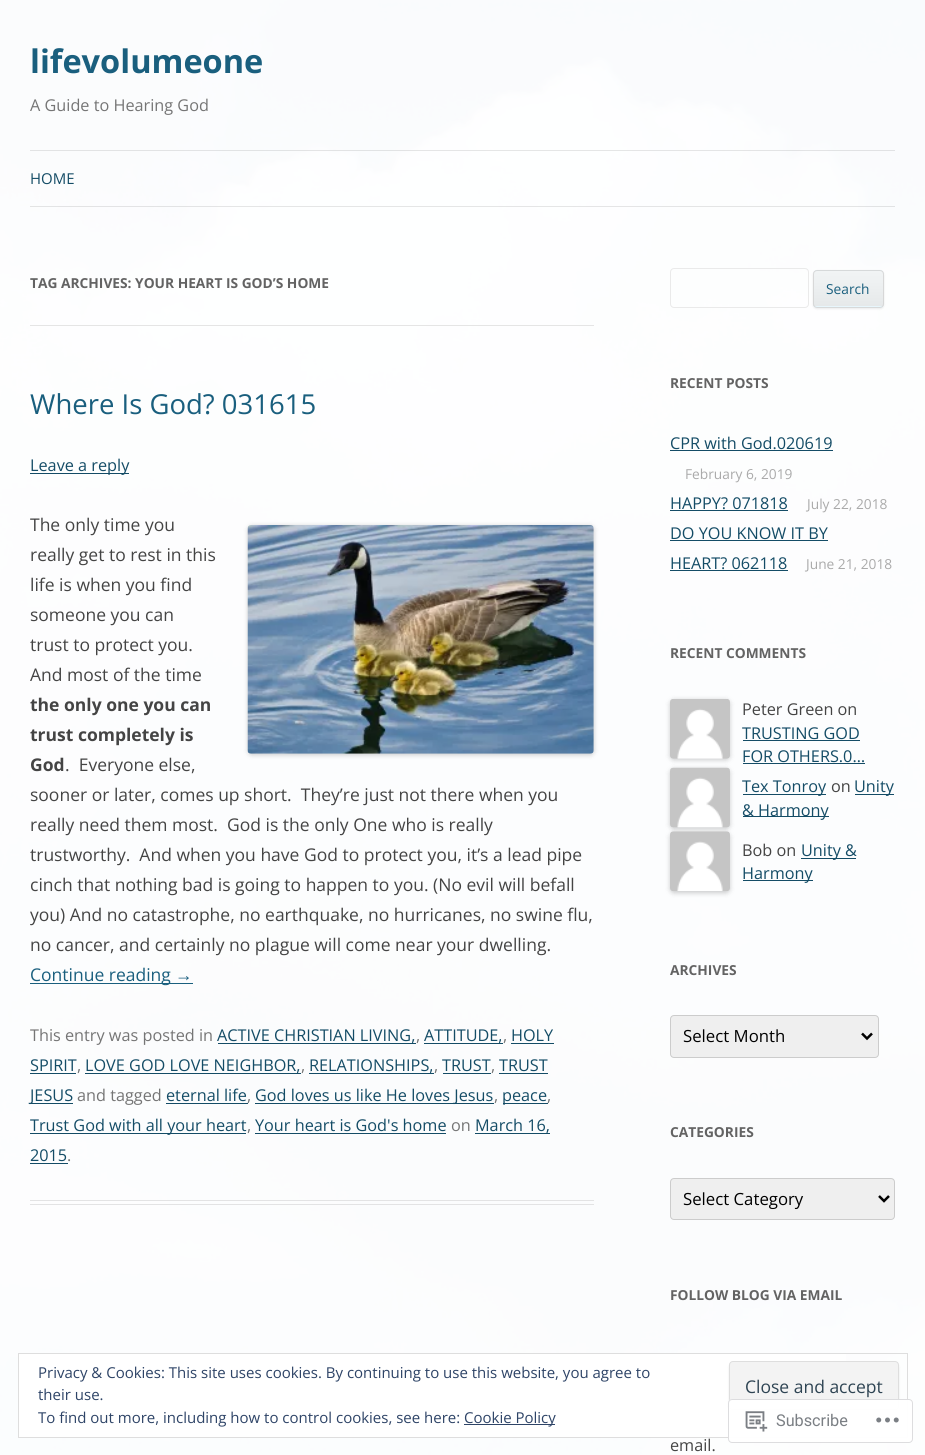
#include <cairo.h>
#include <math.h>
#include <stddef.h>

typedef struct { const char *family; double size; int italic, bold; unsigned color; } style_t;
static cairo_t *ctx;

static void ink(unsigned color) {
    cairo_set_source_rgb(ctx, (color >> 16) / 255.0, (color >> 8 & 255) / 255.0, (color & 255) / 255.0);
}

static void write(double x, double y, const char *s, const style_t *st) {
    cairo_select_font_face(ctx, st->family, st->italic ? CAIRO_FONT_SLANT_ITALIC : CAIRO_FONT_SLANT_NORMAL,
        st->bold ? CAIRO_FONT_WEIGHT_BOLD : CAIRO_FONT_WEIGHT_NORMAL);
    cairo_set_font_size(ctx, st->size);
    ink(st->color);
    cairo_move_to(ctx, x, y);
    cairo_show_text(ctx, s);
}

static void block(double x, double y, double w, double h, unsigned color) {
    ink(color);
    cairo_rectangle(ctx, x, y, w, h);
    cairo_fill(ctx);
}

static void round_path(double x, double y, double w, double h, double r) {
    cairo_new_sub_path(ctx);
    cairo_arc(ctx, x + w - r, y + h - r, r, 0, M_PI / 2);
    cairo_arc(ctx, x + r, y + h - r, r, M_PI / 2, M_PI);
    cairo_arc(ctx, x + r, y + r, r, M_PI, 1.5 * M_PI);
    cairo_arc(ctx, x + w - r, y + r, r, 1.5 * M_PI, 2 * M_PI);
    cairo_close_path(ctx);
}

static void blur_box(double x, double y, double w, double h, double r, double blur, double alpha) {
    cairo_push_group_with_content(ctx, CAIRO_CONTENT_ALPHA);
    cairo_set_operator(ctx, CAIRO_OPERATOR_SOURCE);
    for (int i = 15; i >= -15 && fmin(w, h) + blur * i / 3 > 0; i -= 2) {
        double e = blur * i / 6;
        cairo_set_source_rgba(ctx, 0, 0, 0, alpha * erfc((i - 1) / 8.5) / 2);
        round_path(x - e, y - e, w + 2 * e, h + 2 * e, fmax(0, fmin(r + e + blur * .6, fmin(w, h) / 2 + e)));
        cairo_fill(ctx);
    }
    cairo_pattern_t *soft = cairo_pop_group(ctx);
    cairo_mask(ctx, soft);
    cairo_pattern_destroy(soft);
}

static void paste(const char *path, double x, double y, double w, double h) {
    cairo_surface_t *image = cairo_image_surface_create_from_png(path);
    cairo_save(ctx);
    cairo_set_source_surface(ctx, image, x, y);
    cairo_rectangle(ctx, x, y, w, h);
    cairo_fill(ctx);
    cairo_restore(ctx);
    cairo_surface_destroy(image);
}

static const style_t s1 = {"Open Sans", 32.5, 0, 1, 0x1a5f7e};
static const style_t s2 = {"Open Sans", 16.25, 0, 0, 0x757575};
static const style_t s3 = {"Open Sans", 15, 0, 0, 0x144c66};
static const style_t s4 = {"Open Sans", 13.75, 0, 1, 0x636363};
static const style_t s5 = {"Open Sans", 27.5, 0, 0, 0x1a5f7e};
static const style_t s6 = {"Open Sans", 16.25, 0, 0, 0x144c66};
static const style_t s7 = {"Open Sans", 17.5, 0, 0, 0x444444};
static const style_t s8 = {"Open Sans", 17.5, 0, 1, 0x444444};
static const style_t s9 = {"Open Sans", 17.5, 0, 0, 0x1a5f7e};
static const style_t s10 = {"Liberation Sans", 17.5, 0, 0, 0x1a5f7e};
static const style_t s11 = {"Open Sans", 13.75, 0, 0, 0x1a5f7e};
static const style_t s12 = {"Open Sans", 13.75, 0, 0, 0xaaaaaa};
static const style_t s13 = {"Open Sans", 16.25, 0, 0, 0x444444};
static const style_t s14 = {"Open Sans", 16.75, 0, 0, 0x000000};
static const style_t s15 = {"Open Sans", 15, 0, 0, 0x2e4467};
static const style_t s16 = {"Open Sans", 17.5, 0, 0, 0x2e4453};
static const style_t s17 = {"Roboto", 16.25, 0, 0, 0x7b7f84};

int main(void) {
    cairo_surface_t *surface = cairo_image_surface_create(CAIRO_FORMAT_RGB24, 925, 1455);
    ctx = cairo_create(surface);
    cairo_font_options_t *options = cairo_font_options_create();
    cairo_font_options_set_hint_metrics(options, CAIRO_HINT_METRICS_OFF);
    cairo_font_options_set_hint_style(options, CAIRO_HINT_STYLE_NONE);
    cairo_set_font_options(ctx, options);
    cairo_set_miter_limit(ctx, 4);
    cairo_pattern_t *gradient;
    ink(0xffffff);
    cairo_paint(ctx);
    paste("pic1.png", 0, 0, 925, 1455);
    write(30, 73, "lifevolumeone", &s1);
    write(30, 111, "A Guide to Hearing God", &s2);
    cairo_set_source_rgba(ctx, 0, 0, 0, 0.1);
    cairo_rectangle(ctx, 30, 150, 865, 1);
    cairo_fill(ctx);
    cairo_rectangle(ctx, 30, 206, 865, 1);
    cairo_fill(ctx);
    write(30, 184, "HOME", &s3);
    block(30, 325, 564, 1, 0xe5e5e5);
    write(30, 288, "TAG ARCHIVES: YOUR HEART IS GOD’S HOME", &s4);
    block(30, 1200, 564, 1, 0xe3e3e4);
    block(30, 1204, 564, 1, 0xe3e3e4);
    write(30, 414, "Where Is God? 031615", &s5);
    block(30, 473, 99, 1, 0x144c66);
    write(30, 471, "Leave a reply", &s6);
    write(30, 531, "The only time you", &s7);
    ink(0x000000);
    blur_box(248, 526, 346, 229, 4, 2.5, 0.2);
    paste("pic2.png", 247, 525, 347, 229);
    write(30, 561, "really get to rest in this", &s7);
    write(30, 591, "life is when you find", &s7);
    write(30, 621, "someone you can", &s7);
    write(30, 651, "trust to protect you.", &s7);
    write(30, 681, "And most of the time", &s7);
    write(30, 711, "the only one you can", &s8);
    write(30, 741, "trust completely is", &s8);
    write(30, 771, "God", &s8);
    write(65, 771, ".  Everyone else,", &s7);
    write(30, 801, "sooner or later, comes up short.  They’re just not there when you", &s7);
    write(30, 831, "really need them most.  God is the only One who is really", &s7);
    write(30, 861, "trustworthy.  And when you have God to protect you, it’s a lead pipe", &s7);
    write(30, 891, "cinch that nothing bad is going to happen to you. (No evil will befall", &s7);
    write(30, 921, "you) And no catastrophe, no earthquake, no hurricanes, no swine flu,", &s7);
    write(30, 951, "no cancer, and certainly no plague will come near your dwelling.", &s7);
    block(30, 983, 163, 1, 0x1a5f7e);
    write(30, 981, "Continue reading", &s9);
    write(175, 981, "→", &s10);
    write(30, 1041, "This entry was posted in", &s2);
    block(218, 1043, 198, 1, 0x144c66);
    write(217, 1041, "ACTIVE CHRISTIAN LIVING,", &s6);
    write(416, 1041, ",", &s2);
    block(424, 1043, 79, 1, 0x144c66);
    write(424, 1041, "ATTITUDE,", &s6);
    write(503, 1041, ",", &s2);
    write(511, 1041, "HOLY", &s6);
    block(511, 1043, 43, 1, 0x144c66);
    write(30, 1071, "SPIRIT", &s6);
    block(30, 1073, 46, 1, 0x144c66);
    write(77, 1071, ",", &s2);
    block(85, 1073, 216, 1, 0x144c66);
    write(85, 1071, "LOVE GOD LOVE NEIGHBOR,", &s6);
    write(301, 1071, ",", &s2);
    block(309, 1073, 125, 1, 0x144c66);
    write(309, 1071, "RELATIONSHIPS,", &s6);
    write(434, 1071, ",", &s2);
    write(442, 1071, "TRUST", &s6);
    block(443, 1073, 48, 1, 0x144c66);
    write(491, 1071, ",", &s2);
    write(499, 1071, "TRUST", &s6);
    block(499, 1073, 49, 1, 0x144c66);
    block(30, 1103, 43, 1, 0x144c66);
    write(30, 1101, "JESUS", &s6);
    write(77, 1101, "and tagged", &s2);
    write(166, 1101, "eternal life", &s6);
    block(166, 1103, 82, 1, 0x144c66);
    write(247, 1101, ",", &s2);
    block(255, 1103, 239, 1, 0x144c66);
    write(255, 1101, "God loves us like He loves Jesus", &s6);
    write(494, 1101, ",", &s2);
    block(503, 1103, 45, 1, 0x144c66);
    write(502, 1101, "peace", &s6);
    write(547, 1101, ",", &s2);
    block(30, 1133, 216, 1, 0x144c66);
    write(30, 1131, "Trust God with all your heart", &s6);
    write(247, 1131, ",", &s2);
    write(255, 1131, "Your heart is God's home", &s6);
    block(255, 1133, 191, 1, 0x144c66);
    write(451, 1131, "on", &s2);
    block(475, 1133, 75, 1, 0x144c66);
    write(475, 1131, "March 16,", &s6);
    write(30, 1161, "2015", &s6);
    block(30, 1163, 38, 1, 0x144c66);
    write(67, 1161, ".", &s2);
    round_path(670.5, 268.5, 138, 39, 3.5);
    ink(0xeaeaea);
    cairo_set_line_width(ctx, 1);
    cairo_stroke(ctx);
    cairo_save(ctx);
    cairo_set_fill_rule(ctx, CAIRO_FILL_RULE_EVEN_ODD);
    cairo_new_path(ctx);
    cairo_move_to(ctx, 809, 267);
    cairo_line_to(ctx, 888, 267);
    cairo_line_to(ctx, 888, 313);
    cairo_line_to(ctx, 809, 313);
    cairo_close_path(ctx);
    cairo_move_to(ctx, 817, 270);
    cairo_line_to(ctx, 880, 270);
    cairo_curve_to(ctx, 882, 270, 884, 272, 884, 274);
    cairo_line_to(ctx, 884, 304);
    cairo_curve_to(ctx, 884, 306, 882, 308, 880, 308);
    cairo_line_to(ctx, 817, 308);
    cairo_curve_to(ctx, 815, 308, 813, 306, 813, 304);
    cairo_line_to(ctx, 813, 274);
    cairo_curve_to(ctx, 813, 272, 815, 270, 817, 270);
    cairo_close_path(ctx);
    cairo_clip(ctx);
    ink(0x404040);
    blur_box(813, 271, 71, 38, 4, 1, 0.1);
    cairo_restore(ctx);
    cairo_set_source_rgba(ctx, 0.149, 0.678, 0.894, 0.1);
    round_path(813, 270, 71, 38, 4);
    cairo_fill(ctx);
    cairo_save(ctx);
    round_path(813, 270, 71, 38, 4);
    cairo_clip(ctx);
    gradient = cairo_pattern_create_linear(848, 271, 848, 306);
    cairo_pattern_add_color_stop_rgba(gradient, 0, 0.957, 0.957, 0.957, 0.8);
    cairo_pattern_add_color_stop_rgba(gradient, 1, 0.902, 0.902, 0.902, 0.8);
    cairo_set_source(ctx, gradient);
    cairo_pattern_destroy(gradient);
    cairo_rectangle(ctx, 813, 271, 71, 35);
    cairo_fill(ctx);
    cairo_restore(ctx);
    round_path(813.5, 270.5, 70, 37, 3.5);
    cairo_set_source_rgba(ctx, 0.824, 0.824, 0.824, 0.8);
    cairo_stroke(ctx);
    write(826, 294, "Search", &s11);
    write(670, 388, "RECENT POSTS", &s4);
    write(670, 449, "CPR with God.020619", &s6);
    block(670, 450, 163, 1, 0x144c66);
    write(685, 479, "February 6, 2019", &s12);
    write(670, 509, "HAPPY? 071818", &s6);
    block(670, 510, 118, 1, 0x144c66);
    write(807, 509, "July 22, 2018", &s12);
    write(670, 539, "DO YOU KNOW IT BY", &s6);
    block(670, 540, 158, 1, 0x144c66);
    write(670, 569, "HEART? 062118", &s6);
    block(670, 570, 118, 1, 0x144c66);
    write(806, 569, "June 21, 2018", &s12);
    write(670, 658, "RECENT COMMENTS", &s4);
    ink(0x000000);
    blur_box(670, 700, 60, 60, 4, 2.5, 0.2);
    paste("pic3.png", 670, 699, 60, 60);
    write(742, 715, "Peter Green on", &s13);
    write(742, 739, "TRUSTING GOD", &s6);
    block(743, 740, 117, 1, 0x144c66);
    write(742, 762, "FOR OTHERS.0…", &s6);
    block(743, 763, 122, 1, 0x144c66);
    ink(0x000000);
    blur_box(670, 769, 60, 60, 4, 2.5, 0.2);
    paste("pic4.png", 670, 767, 60, 61);
    block(743, 794, 83, 1, 0x144c66);
    write(742, 792, "Tex Tonroy", &s6);
    write(831, 792, "on", &s13);
    block(855, 794, 39, 1, 0x144c66);
    write(854, 792, "Unity", &s6);
    block(743, 816, 86, 1, 0x144c66);
    write(742, 816, "& Harmony", &s6);
    ink(0x000000);
    blur_box(670, 833, 60, 60, 4, 2.5, 0.2);
    paste("pic5.png", 670, 831, 60, 60);
    write(742, 856, "Bob on", &s13);
    block(801, 858, 55, 1, 0x144c66);
    write(801, 856, "Unity &", &s6);
    block(743, 880, 70, 1, 0x144c66);
    write(742, 879, "Harmony", &s6);
    write(670, 975, "ARCHIVES", &s4);
    ink(0xefefef);
    round_path(670.5, 1015.5, 208, 42, 3.5);
    cairo_fill_preserve(ctx);
    ink(0xcccccc);
    cairo_stroke(ctx);
    cairo_new_path(ctx);
    cairo_move_to(ctx, 862, 1033.5);
    cairo_line_to(ctx, 867, 1038.5);
    cairo_line_to(ctx, 872, 1033.5);
    ink(0x000000);
    cairo_set_line_width(ctx, 2.5);
    cairo_stroke(ctx);
    write(683, 1042, "Select Month", &s14);
    write(670, 1137, "CATEGORIES", &s4);
    ink(0xefefef);
    round_path(670.5, 1178.5, 224, 41, 3.5);
    cairo_fill_preserve(ctx);
    ink(0xcccccc);
    cairo_set_line_width(ctx, 1);
    cairo_stroke(ctx);
    cairo_new_path(ctx);
    cairo_move_to(ctx, 879, 1196);
    cairo_line_to(ctx, 884, 1201);
    cairo_line_to(ctx, 889, 1196);
    ink(0x000000);
    cairo_set_line_width(ctx, 2.5);
    cairo_stroke(ctx);
    write(683, 1205, "Select Category", &s14);
    write(670, 1300, "FOLLOW BLOG VIA EMAIL", &s4);
    write(670, 1451, "email.", &s13);
    block(19, 1354, 827, 83, 0xffffff);
    cairo_rectangle(ctx, 18.5, 1353.5, 889, 84);
    ink(0xdedede);
    cairo_set_line_width(ctx, 1);
    cairo_stroke(ctx);
    write(38, 1378, "Privacy & Cookies: This site uses cookies. By continuing to use this website, you agree to", &s15);
    write(38, 1400, "their use.", &s15);
    ink(0x404040);
    blur_box(729, 1363, 170, 48, 4, 1, 0.1);
    ink(0xf3f3f3);
    round_path(729.5, 1361.5, 169, 48, 3.5);
    cairo_fill_preserve(ctx);
    ink(0xdedede);
    cairo_stroke(ctx);
    write(745, 1393, "Close and accept", &s16);
    write(38, 1423, "To find out more, including how to control cookies, see here:", &s15);
    block(464, 1424, 91, 1, 0x2e4467);
    write(464, 1423, "Cookie Policy", &s15);
    cairo_set_source_rgba(ctx, 1, 1, 1, 0.98);
    round_path(728, 1399, 185, 44, 4);
    cairo_fill(ctx);
    round_path(728.5, 1399.5, 184, 43, 3.5);
    cairo_set_source_rgba(ctx, 0.863, 0.863, 0.871, 0.98);
    cairo_stroke(ctx);
    paste("pic6.png", 745, 1411, 23, 21);
    write(776, 1426, "Subscribe", &s17);
    paste("pic7.png", 876, 1417, 23, 6);
    cairo_surface_write_to_png(surface, "screenshot.png");
    cairo_font_options_destroy(options);
    cairo_destroy(ctx);
    cairo_surface_destroy(surface);
    return 0;
}
